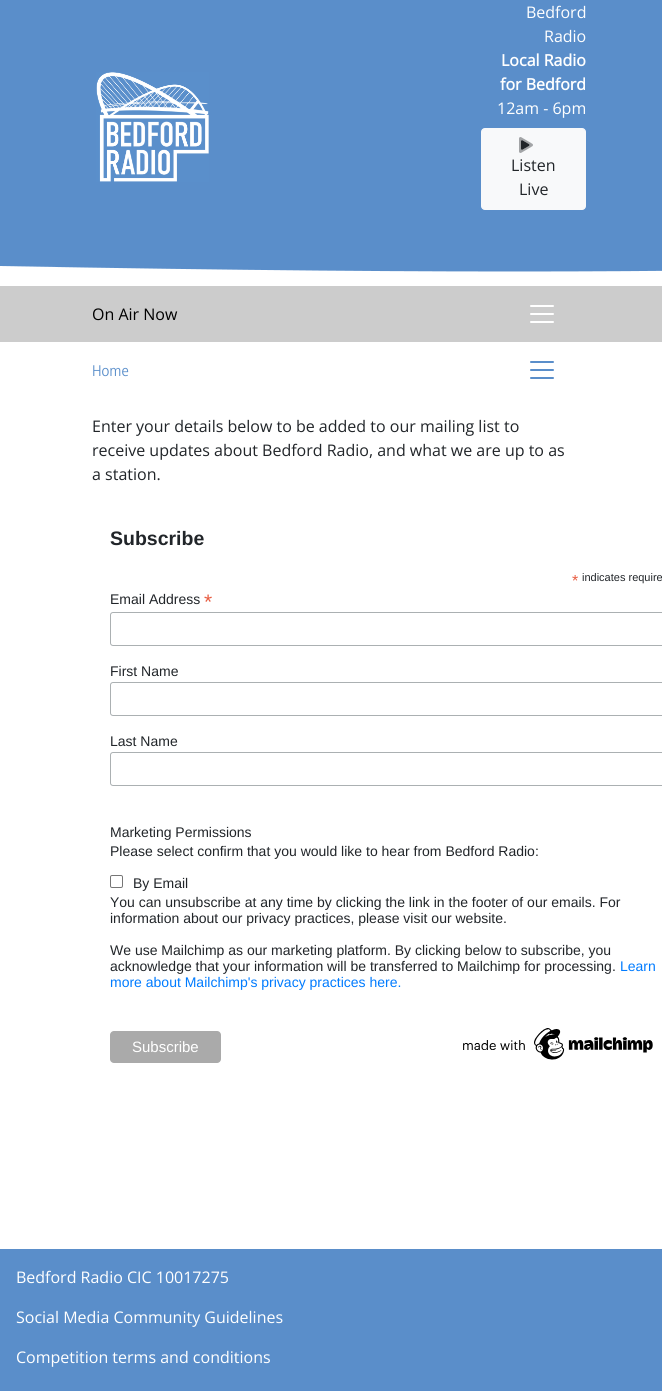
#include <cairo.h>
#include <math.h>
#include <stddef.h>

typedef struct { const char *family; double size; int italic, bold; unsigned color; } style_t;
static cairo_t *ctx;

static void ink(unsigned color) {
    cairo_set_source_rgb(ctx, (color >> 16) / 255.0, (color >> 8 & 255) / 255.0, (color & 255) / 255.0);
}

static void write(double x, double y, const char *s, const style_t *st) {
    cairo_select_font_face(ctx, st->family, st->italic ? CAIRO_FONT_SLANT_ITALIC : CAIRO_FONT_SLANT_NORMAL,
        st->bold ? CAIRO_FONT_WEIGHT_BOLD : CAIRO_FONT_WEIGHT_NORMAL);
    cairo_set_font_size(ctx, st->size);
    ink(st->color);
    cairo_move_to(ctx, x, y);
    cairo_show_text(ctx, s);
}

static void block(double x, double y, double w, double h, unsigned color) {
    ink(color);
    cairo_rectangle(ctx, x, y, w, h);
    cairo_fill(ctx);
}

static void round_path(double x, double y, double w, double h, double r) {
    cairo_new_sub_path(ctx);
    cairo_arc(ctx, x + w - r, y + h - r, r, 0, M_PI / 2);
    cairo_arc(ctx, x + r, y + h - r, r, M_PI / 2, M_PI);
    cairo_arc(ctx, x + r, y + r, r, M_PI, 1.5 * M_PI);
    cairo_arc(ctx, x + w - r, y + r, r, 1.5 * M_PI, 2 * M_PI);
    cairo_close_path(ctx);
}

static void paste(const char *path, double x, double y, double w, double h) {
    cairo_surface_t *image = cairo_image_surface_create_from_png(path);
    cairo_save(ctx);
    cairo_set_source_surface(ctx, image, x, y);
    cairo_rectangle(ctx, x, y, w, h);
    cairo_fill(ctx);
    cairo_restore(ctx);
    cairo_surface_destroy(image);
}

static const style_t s1 = {"Open Sans", 16, 0, 0, 0xffffff};
static const style_t s2 = {"Open Sans", 16, 0, 1, 0xffffff};
static const style_t s3 = {"Open Sans", 16, 0, 0, 0x212529};
static const style_t s4 = {"Open Sans", 16, 0, 0, 0x000000};
static const style_t s5 = {"Yaldevi ExtraLight", 14, 0, 0, 0x5a8eca};
static const style_t s6 = {"Liberation Sans", 19.5, 0, 1, 0x212529};
static const style_t s7 = {"Liberation Sans", 16, 0, 0, 0xe85c41};
static const style_t s8 = {"Liberation Sans", 11, 0, 0, 0x212529};
static const style_t s9 = {"Liberation Sans", 14, 0, 0, 0x212529};
static const style_t s10 = {"Liberation Sans", 21, 0, 0, 0xe85c41};
static const style_t s11 = {"Liberation Sans", 14, 0, 0, 0x007bff};
static const style_t s12 = {"Liberation Sans", 15, 0, 0, 0xffffff};

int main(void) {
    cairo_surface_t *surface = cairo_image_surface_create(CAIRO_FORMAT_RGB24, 662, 1391);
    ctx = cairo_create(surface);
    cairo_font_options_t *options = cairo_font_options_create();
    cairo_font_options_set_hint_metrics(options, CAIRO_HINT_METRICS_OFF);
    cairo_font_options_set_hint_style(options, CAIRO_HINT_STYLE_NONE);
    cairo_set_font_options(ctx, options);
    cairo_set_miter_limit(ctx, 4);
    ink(0xffffff);
    cairo_paint(ctx);
    block(0, 0, 662, 226, 0x5a8eca);
    paste("pic1.png", 96, 72, 113, 110);
    write(526, 18, "Bedford", &s1);
    write(544, 42, "Radio", &s1);
    write(501, 66, "Local Radio", &s2);
    write(500, 90, "for Bedford", &s2);
    write(497, 114, "12am - 6pm", &s1);
    ink(0xf8f9fa);
    round_path(481.5, 128.5, 104, 81, 3.5);
    cairo_fill_preserve(ctx);
    cairo_set_line_width(ctx, 1);
    cairo_stroke(ctx);
    paste("pic3.png", 521, 140, 9, 10);
    paste("pic2.png", 519, 137, 14, 16);
    write(511, 171, "Listen", &s3);
    write(519, 195, "Live", &s3);
    cairo_save(ctx);
    cairo_rectangle(ctx, 0, 226, 662, 60);
    cairo_clip(ctx);
    ink(0x5a8eca);
    cairo_new_path(ctx);
    cairo_move_to(ctx, -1, 166);
    cairo_line_to(ctx, 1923, 166);
    cairo_line_to(ctx, 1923, 252);
    cairo_curve_to(ctx, 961, 252, 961, 284, -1, 266);
    cairo_close_path(ctx);
    cairo_fill(ctx);
    cairo_restore(ctx);
    block(0, 286, 662, 56, 0xcccccc);
    write(92, 320, "On Air Now", &s4);
    paste("pic4.png", 530, 305, 24, 18);
    write(92, 376, "Home", &s5);
    paste("pic5.png", 530, 361, 24, 18);
    write(92, 432, "Enter your details below to be added to our mailing list to", &s3);
    write(92, 456, "receive updates about Bedford Radio, and what we are up to as", &s3);
    write(92, 480, "a station.", &s3);
    write(110, 545, "Subscribe", &s6);
    write(572, 586, "*", &s7);
    write(582, 581, "indicates require", &s8);
    write(110, 604, "Email Address", &s9);
    write(204, 609, "*", &s10);
    round_path(110.5, 612.5, 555, 33, 2.5);
    ink(0xabb0b2);
    cairo_stroke(ctx);
    write(110, 676, "First Name", &s9);
    round_path(110.5, 682.5, 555, 33, 2.5);
    ink(0xabb0b2);
    cairo_stroke(ctx);
    write(110, 746, "Last Name", &s9);
    round_path(110.5, 752.5, 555, 33, 2.5);
    ink(0xabb0b2);
    cairo_stroke(ctx);
    write(110, 837, "Marketing Permissions", &s9);
    write(110, 856, "Please select confirm that you would like to hear from Bedford Radio:", &s9);
    round_path(110.5, 875.5, 12, 12, 1.5);
    ink(0x767676);
    cairo_stroke(ctx);
    write(133, 888, "By Email", &s9);
    write(110, 907, "You can unsubscribe at any time by clicking the link in the footer of our emails. For", &s9);
    write(110, 923, "information about our privacy practices, please visit our website.", &s9);
    write(110, 955, "We use Mailchimp as our marketing platform. By clicking below to subscribe, you", &s9);
    write(110, 971, "acknowledge that your information will be transferred to Mailchimp for processing.", &s9);
    write(620, 971, "Learn", &s11);
    write(110, 987, "more about Mailchimp's privacy practices here.", &s11);
    ink(0xaaaaaa);
    round_path(110, 1031, 111, 32, 4);
    cairo_fill(ctx);
    write(132, 1052, "Subscribe", &s12);
    paste("pic6.png", 463, 1028, 190, 32);
    block(0, 1249, 662, 142, 0x5a8eca);
    write(16, 1283, "Bedford Radio CIC 10017275", &s1);
    write(16, 1323, "Social Media Community Guidelines", &s1);
    write(16, 1363, "Competition terms and conditions", &s1);
    cairo_surface_write_to_png(surface, "screenshot.png");
    cairo_font_options_destroy(options);
    cairo_destroy(ctx);
    cairo_surface_destroy(surface);
    return 0;
}
